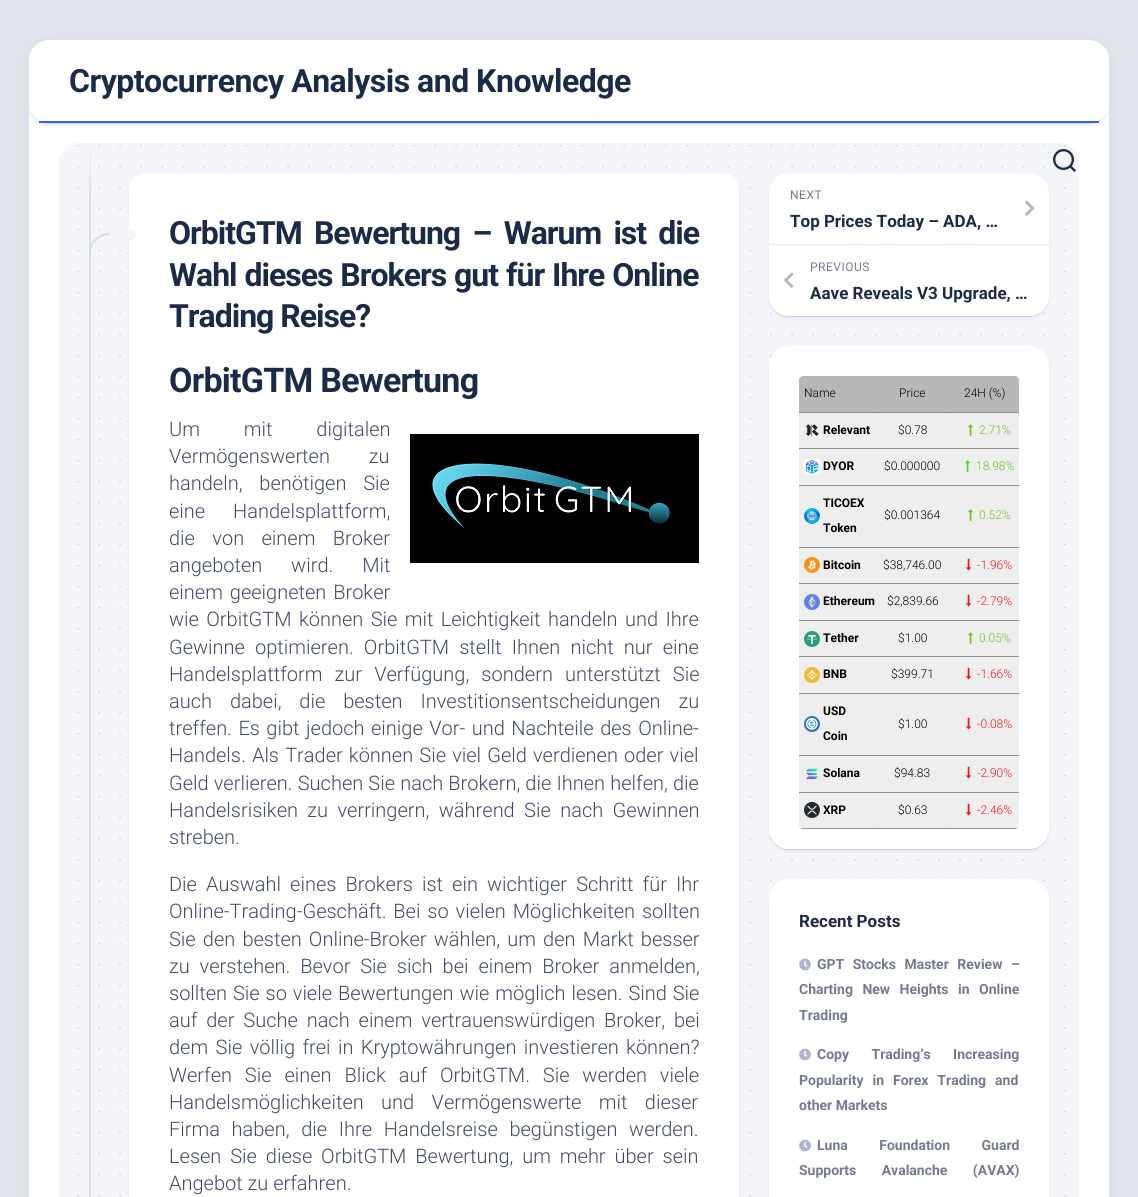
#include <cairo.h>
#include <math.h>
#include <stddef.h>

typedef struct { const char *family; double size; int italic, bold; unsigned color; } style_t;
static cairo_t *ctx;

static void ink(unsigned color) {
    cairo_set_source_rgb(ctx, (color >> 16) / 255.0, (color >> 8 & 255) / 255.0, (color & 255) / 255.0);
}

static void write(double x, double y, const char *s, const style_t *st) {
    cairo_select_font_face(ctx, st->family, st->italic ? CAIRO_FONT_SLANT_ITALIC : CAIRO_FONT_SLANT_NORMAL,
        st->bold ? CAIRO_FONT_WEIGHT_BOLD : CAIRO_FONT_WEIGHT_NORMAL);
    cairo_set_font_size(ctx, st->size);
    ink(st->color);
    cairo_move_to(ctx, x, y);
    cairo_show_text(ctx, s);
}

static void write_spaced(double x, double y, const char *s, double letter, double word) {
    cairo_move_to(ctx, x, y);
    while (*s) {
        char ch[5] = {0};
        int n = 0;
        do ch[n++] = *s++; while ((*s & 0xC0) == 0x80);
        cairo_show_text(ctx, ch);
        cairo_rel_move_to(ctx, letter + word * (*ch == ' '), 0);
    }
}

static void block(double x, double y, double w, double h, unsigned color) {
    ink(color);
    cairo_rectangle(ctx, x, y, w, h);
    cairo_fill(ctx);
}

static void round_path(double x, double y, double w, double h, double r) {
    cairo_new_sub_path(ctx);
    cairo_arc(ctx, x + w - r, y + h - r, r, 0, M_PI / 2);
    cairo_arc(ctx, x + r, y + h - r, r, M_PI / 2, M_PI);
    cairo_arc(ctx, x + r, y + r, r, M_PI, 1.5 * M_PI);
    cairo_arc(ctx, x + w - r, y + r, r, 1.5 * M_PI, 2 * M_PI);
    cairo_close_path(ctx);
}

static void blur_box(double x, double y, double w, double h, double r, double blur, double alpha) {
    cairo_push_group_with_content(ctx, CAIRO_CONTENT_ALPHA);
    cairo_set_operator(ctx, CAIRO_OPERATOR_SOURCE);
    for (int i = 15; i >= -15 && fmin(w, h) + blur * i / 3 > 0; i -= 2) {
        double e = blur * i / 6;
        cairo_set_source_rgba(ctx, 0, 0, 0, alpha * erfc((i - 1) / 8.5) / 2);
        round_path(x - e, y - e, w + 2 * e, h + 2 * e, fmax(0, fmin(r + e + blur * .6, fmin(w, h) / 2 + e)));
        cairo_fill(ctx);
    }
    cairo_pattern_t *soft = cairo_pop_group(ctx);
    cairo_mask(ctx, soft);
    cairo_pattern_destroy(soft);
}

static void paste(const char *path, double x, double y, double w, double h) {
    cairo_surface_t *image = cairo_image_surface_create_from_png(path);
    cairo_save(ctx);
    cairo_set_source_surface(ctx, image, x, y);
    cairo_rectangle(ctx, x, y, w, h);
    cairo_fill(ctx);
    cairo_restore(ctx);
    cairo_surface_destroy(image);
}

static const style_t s1 = {"Roboto Light", 20, 0, 0, 0x434b64};
static const style_t s2 = {"Roboto", 17, 0, 1, 0x1b2b47};
static const style_t s3 = {"Roboto Light", 12, 0, 0, 0x000000};
static const style_t s4 = {"Roboto", 12, 0, 1, 0x000000};
static const style_t s5 = {"Roboto Light", 12, 0, 0, 0x67c624};
static const style_t s6 = {"Roboto Light", 12, 0, 0, 0xed1414};
static const style_t s7 = {"Roboto", 14, 0, 1, 0x73798e};

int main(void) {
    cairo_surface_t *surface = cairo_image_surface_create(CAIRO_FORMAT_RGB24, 1138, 1197);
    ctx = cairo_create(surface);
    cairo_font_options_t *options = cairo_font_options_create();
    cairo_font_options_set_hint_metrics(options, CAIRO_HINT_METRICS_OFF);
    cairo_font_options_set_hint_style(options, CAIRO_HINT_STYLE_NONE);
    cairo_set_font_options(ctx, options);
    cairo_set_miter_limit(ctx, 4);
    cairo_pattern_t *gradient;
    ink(0xe4e6ed);
    cairo_paint(ctx);
    ink(0xd6dae4);
    blur_box(29, 40, 1080, 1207, 20, 10, 1);
    ink(0xffffff);
    round_path(29, 40, 1080, 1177, 20);
    cairo_fill(ctx);
    cairo_save(ctx);
    cairo_new_path(ctx);
    cairo_move_to(ctx, 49, 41);
    cairo_line_to(ctx, 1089, 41);
    cairo_curve_to(ctx, 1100, 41, 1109, 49.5, 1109, 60);
    cairo_line_to(ctx, 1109, 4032);
    cairo_curve_to(ctx, 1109, 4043, 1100, 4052, 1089, 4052);
    cairo_line_to(ctx, 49, 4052);
    cairo_curve_to(ctx, 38, 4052, 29, 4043, 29, 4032);
    cairo_line_to(ctx, 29, 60);
    cairo_curve_to(ctx, 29, 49.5, 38, 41, 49, 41);
    cairo_close_path(ctx);
    cairo_clip(ctx);
    cairo_set_fill_rule(ctx, CAIRO_FILL_RULE_EVEN_ODD);
    cairo_new_path(ctx);
    cairo_move_to(ctx, 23, 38);
    cairo_line_to(ctx, 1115, 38);
    cairo_line_to(ctx, 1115, 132);
    cairo_line_to(ctx, 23, 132);
    cairo_close_path(ctx);
    cairo_move_to(ctx, 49, 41);
    cairo_line_to(ctx, 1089, 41);
    cairo_curve_to(ctx, 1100, 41, 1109, 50, 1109, 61);
    cairo_line_to(ctx, 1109, 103);
    cairo_curve_to(ctx, 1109, 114, 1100, 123, 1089, 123);
    cairo_line_to(ctx, 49, 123);
    cairo_curve_to(ctx, 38, 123, 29, 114, 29, 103);
    cairo_line_to(ctx, 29, 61);
    cairo_curve_to(ctx, 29, 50, 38, 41, 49, 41);
    cairo_close_path(ctx);
    cairo_clip(ctx);
    ink(0xc1cbe6);
    blur_box(29, 44, 1080, 82, 20, 1.5, 0.3);
    cairo_restore(ctx);
    cairo_set_source_rgba(ctx, 0, 0, 0, 0.1);
    cairo_new_path(ctx);
    cairo_move_to(ctx, 29, 103);
    cairo_curve_to(ctx, 29, 114, 37, 124, 49, 124);
    cairo_line_to(ctx, 1089, 124);
    cairo_curve_to(ctx, 1101, 124, 1109, 114, 1109, 103);
    cairo_curve_to(ctx, 1109, 114, 1100, 123, 1089, 123);
    cairo_line_to(ctx, 49, 123);
    cairo_curve_to(ctx, 38, 123, 29, 114, 29, 103);
    cairo_close_path(ctx);
    cairo_fill(ctx);
    cairo_set_source_rgba(ctx, 1, 1, 1, 0.9);
    round_path(29, 41, 1080, 82, 20);
    cairo_fill(ctx);
    block(39, 121, 1060, 2, 0x3b61eb);
    cairo_select_font_face(ctx, "Roboto", CAIRO_FONT_SLANT_NORMAL, CAIRO_FONT_WEIGHT_BOLD);
    cairo_set_font_size(ctx, 32);
    ink(0x1b2b47);
    write_spaced(69, 92, "Cryptocurrency Analysis and Knowledge", -0.5, 0);
    ink(0xf4f5f8);
    round_path(59, 143, 1020, 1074, 20);
    cairo_fill(ctx);
    paste("pic2.png", 77, 145, 990, 1052);
    paste("pic1.png", 1053, 149, 23, 23);
    block(89, 203, 2, 994, 0xd8dbe5);
    gradient = cairo_pattern_create_linear(90, 203, 90, 143);
    cairo_pattern_add_color_stop_rgba(gradient, 0, 0.847, 0.859, 0.898, 1);
    cairo_pattern_add_color_stop_rgba(gradient, 1, 0.957, 0.961, 0.973, 1);
    cairo_set_source(ctx, gradient);
    cairo_pattern_destroy(gradient);
    cairo_rectangle(ctx, 89, 143, 2, 60);
    cairo_fill(ctx);
    ink(0xd8dbe5);
    cairo_set_fill_rule(ctx, CAIRO_FILL_RULE_EVEN_ODD);
    cairo_new_path(ctx);
    cairo_move_to(ctx, 109, 233);
    cairo_line_to(ctx, 109, 253);
    cairo_line_to(ctx, 89, 253);
    cairo_curve_to(ctx, 89, 242, 98, 233, 109, 233);
    cairo_close_path(ctx);
    cairo_move_to(ctx, 109, 235);
    cairo_line_to(ctx, 109, 253);
    cairo_line_to(ctx, 91, 253);
    cairo_curve_to(ctx, 91, 243, 99, 235, 109, 235);
    cairo_close_path(ctx);
    cairo_fill(ctx);
    ink(0xc1cbe6);
    blur_box(129, 176, 610, 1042, 16, 1.5, 0.3);
    ink(0xffffff);
    round_path(129, 173, 610, 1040, 16);
    cairo_fill(ctx);
    ink(0xf4f5f8);
    cairo_arc(ctx, 121, 225, 10, 0, 2 * M_PI);
    cairo_fill(ctx);
    cairo_arc(ctx, 131, 235, 5, 0, 2 * M_PI);
    cairo_fill(ctx);
    ink(0x1b2b47);
    write_spaced(169, 244, "OrbitGTM Bewertung – Warum ist die", -1, 5.25);
    write_spaced(169, 286, "Wahl dieses Brokers gut für Ihre Online", -1, 1);
    write_spaced(169, 327, "Trading Reise?", -1, 0);
    cairo_set_font_size(ctx, 34);
    write_spaced(169, 392, "OrbitGTM Bewertung", -0.75, 0);
    cairo_select_font_face(ctx, "Roboto Light", CAIRO_FONT_SLANT_NORMAL, CAIRO_FONT_WEIGHT_NORMAL);
    cairo_set_font_size(ctx, 20);
    ink(0x434b64);
    write_spaced(169, 436, "Um mit digitalen", 0, 39);
    write_spaced(169, 463, "Vermögenswerten zu", 0, 34);
    paste("pic3.png", 410, 434, 289, 129);
    write_spaced(169, 490, "handeln, benötigen Sie", 0, 12);
    write_spaced(169, 518, "eine Handelsplattform,", 0, 23);
    write_spaced(169, 545, "die von einem Broker", 0, 12.5);
    write_spaced(169, 572, "angeboten wird. Mit", 0, 24);
    write_spaced(169, 599, "einem geeigneten Broker", 0, 2);
    write_spaced(169, 626, "wie OrbitGTM können Sie mit Leichtigkeit handeln und Ihre", 0, 2.5);
    write_spaced(169, 654, "Gewinne optimieren. OrbitGTM stellt Ihnen nicht nur eine", 0, 5.25);
    write_spaced(169, 681, "Handelsplattform zur Verfügung, sondern unterstützt Sie", 0, 7.25);
    write_spaced(169, 708, "auch dabei, die besten Investitionsentscheidungen zu", 0, 13);
    write_spaced(169, 735, "treffen. Es gibt jedoch einige Vor- und Nachteile des Online-", 0, 1.6);
    write_spaced(169, 762, "Handels. Als Trader können Sie viel Geld verdienen oder viel", 0, 1.25);
    write_spaced(169, 790, "Geld verlieren. Suchen Sie nach Brokern, die Ihnen helfen, die", 0, 0.25);
    write_spaced(169, 817, "Handelsrisiken zu verringern, während Sie nach Gewinnen", 0, 4.5);
    write(169, 844, "streben.", &s1);
    write_spaced(169, 891, "Die Auswahl eines Brokers ist ein wichtiger Schritt für Ihr", 0, 4.25);
    write_spaced(169, 918, "Online-Trading-Geschäft. Bei so vielen Möglichkeiten sollten", 0, 2);
    write_spaced(169, 946, "Sie den besten Online-Broker wählen, um den Markt besser", 0, 2.25);
    write_spaced(169, 973, "zu verstehen. Bevor Sie sich bei einem Broker anmelden,", 0, 5);
    write_spaced(169, 1000, "sollten Sie so viele Bewertungen wie möglich lesen. Sind Sie", 0, 1);
    write_spaced(169, 1027, "auf der Suche nach einem vertrauenswürdigen Broker, bei", 0, 4);
    write_spaced(169, 1054, "dem Sie völlig frei in Kryptowährungen investieren können?", 0, 2.5);
    write_spaced(169, 1082, "Werfen Sie einen Blick auf OrbitGTM. Sie werden viele", 0, 8);
    write_spaced(169, 1109, "Handelsmöglichkeiten und Vermögenswerte mit dieser", 0, 12.5);
    write_spaced(169, 1136, "Firma haben, die Ihre Handelsreise begünstigen werden.", 0, 6.75);
    write_spaced(169, 1163, "Lesen Sie diese OrbitGTM Bewertung, um mehr über sein", 0, 4);
    write(169, 1190, "Angebot zu erfahren.", &s1);
    ink(0xc1cbe6);
    blur_box(769, 176, 280, 143, 20, 1.5, 0.3);
    cairo_set_source_rgba(ctx, 0, 0, 0, 0.1);
    cairo_set_fill_rule(ctx, CAIRO_FILL_RULE_WINDING);
    cairo_new_path(ctx);
    cairo_move_to(ctx, 769, 296);
    cairo_line_to(ctx, 769, 297);
    cairo_curve_to(ctx, 769, 308, 778, 317, 789, 317);
    cairo_line_to(ctx, 1029, 317);
    cairo_curve_to(ctx, 1040, 317, 1049, 308, 1049, 297);
    cairo_line_to(ctx, 1049, 296);
    cairo_curve_to(ctx, 1049, 307, 1040, 316, 1029, 316);
    cairo_line_to(ctx, 789, 316);
    cairo_curve_to(ctx, 778, 316, 769, 307, 769, 296);
    cairo_close_path(ctx);
    cairo_fill(ctx);
    ink(0xffffff);
    round_path(769, 173, 280, 143, 20);
    cairo_fill(ctx);
    block(769, 244, 280, 1, 0xe4e6ed);
    cairo_select_font_face(ctx, "Roboto", CAIRO_FONT_SLANT_NORMAL, CAIRO_FONT_WEIGHT_NORMAL);
    cairo_set_font_size(ctx, 12);
    ink(0x73798e);
    write_spaced(790, 199, "NEXT", 0.5, 0);
    paste("pic4.png", 1025, 200, 10, 16);
    write(790, 227, "Top Prices Today – ADA, …", &s2);
    cairo_select_font_face(ctx, "Roboto", CAIRO_FONT_SLANT_NORMAL, CAIRO_FONT_WEIGHT_NORMAL);
    cairo_set_font_size(ctx, 12);
    ink(0x73798e);
    write_spaced(810, 271, "PREVIOUS", 0.5, 0);
    paste("pic5.png", 784, 272, 10, 16);
    write(810, 299, "Aave Reveals V3 Upgrade, …", &s2);
    ink(0xc1cbe6);
    blur_box(769, 349, 280, 503, 20, 1.5, 0.3);
    cairo_set_source_rgba(ctx, 0, 0, 0, 0.1);
    cairo_new_path(ctx);
    cairo_move_to(ctx, 769, 829);
    cairo_line_to(ctx, 769, 830);
    cairo_curve_to(ctx, 769, 841, 778, 850, 789, 850);
    cairo_line_to(ctx, 1029, 850);
    cairo_curve_to(ctx, 1040, 850, 1049, 841, 1049, 830);
    cairo_line_to(ctx, 1049, 829);
    cairo_curve_to(ctx, 1049, 840, 1040, 849, 1029, 849);
    cairo_line_to(ctx, 789, 849);
    cairo_curve_to(ctx, 778, 849, 769, 840, 769, 829);
    cairo_close_path(ctx);
    cairo_fill(ctx);
    ink(0xffffff);
    round_path(769, 346, 280, 503, 20);
    cairo_fill(ctx);
    ink(0xeeeeee);
    cairo_new_path(ctx);
    cairo_move_to(ctx, 803, 376);
    cairo_curve_to(ctx, 801, 376, 799, 378, 799, 380);
    cairo_line_to(ctx, 799, 412);
    cairo_line_to(ctx, 1019, 412);
    cairo_line_to(ctx, 1019, 380);
    cairo_curve_to(ctx, 1019, 378, 1017, 376, 1015, 376);
    cairo_close_path(ctx);
    cairo_fill(ctx);
    block(799, 412, 151, 1, 0xb9b9b9);
    cairo_set_source_rgba(ctx, 0.133, 0.133, 0.133, 0.26);
    cairo_new_path(ctx);
    cairo_move_to(ctx, 803, 376);
    cairo_curve_to(ctx, 801, 376, 799, 378, 799, 380);
    cairo_line_to(ctx, 799, 412);
    cairo_line_to(ctx, 874, 412);
    cairo_line_to(ctx, 874, 376);
    cairo_close_path(ctx);
    cairo_fill(ctx);
    block(950, 412, 69, 1, 0x929292);
    cairo_set_source_rgba(ctx, 0.133, 0.133, 0.133, 0.26);
    cairo_rectangle(ctx, 874, 412, 77, 1);
    cairo_fill(ctx);
    cairo_rectangle(ctx, 799, 412, 76, 1);
    cairo_fill(ctx);
    write(804, 397, "Name", &s3);
    block(874, 376, 77, 36, 0xb9b9b9);
    write(899, 397, "Price", &s3);
    cairo_set_source_rgba(ctx, 0.133, 0.133, 0.133, 0.26);
    cairo_new_path(ctx);
    cairo_move_to(ctx, 951, 376);
    cairo_line_to(ctx, 951, 412);
    cairo_line_to(ctx, 1019, 412);
    cairo_line_to(ctx, 1019, 380);
    cairo_curve_to(ctx, 1019, 378, 1017, 376, 1015, 376);
    cairo_close_path(ctx);
    cairo_fill(ctx);
    write(964, 397, "24H (%)", &s3);
    block(799, 413, 220, 35, 0xeeeeee);
    block(799, 448, 151, 1, 0xb9b9b9);
    block(950, 448, 69, 1, 0x929292);
    cairo_set_source_rgba(ctx, 0.133, 0.133, 0.133, 0.26);
    cairo_rectangle(ctx, 874, 448, 77, 1);
    cairo_fill(ctx);
    cairo_rectangle(ctx, 799, 448, 76, 1);
    cairo_fill(ctx);
    paste("pic6.png", 806, 424, 13, 12);
    write(823, 434, "Relevant", &s4);
    write(898, 434, "$0.78", &s3);
    paste("pic7.png", 968, 424, 5, 12);
    write(979, 434, "2.71%", &s5);
    block(799, 449, 220, 36, 0xeeeeee);
    block(799, 485, 151, 1, 0xb9b9b9);
    block(950, 485, 69, 1, 0x929292);
    cairo_set_source_rgba(ctx, 0.133, 0.133, 0.133, 0.26);
    cairo_rectangle(ctx, 874, 485, 77, 1);
    cairo_fill(ctx);
    cairo_rectangle(ctx, 799, 485, 76, 1);
    cairo_fill(ctx);
    paste("pic8.png", 804, 459, 16, 16);
    write(823, 470, "DYOR", &s4);
    write(884, 470, "$0.000000", &s3);
    paste("pic7.png", 965, 460, 5, 12);
    write(976, 470, "18.98%", &s5);
    block(799, 486, 220, 61, 0xeeeeee);
    block(799, 547, 151, 1, 0xb9b9b9);
    block(950, 547, 69, 1, 0x929292);
    cairo_set_source_rgba(ctx, 0.133, 0.133, 0.133, 0.26);
    cairo_rectangle(ctx, 874, 547, 77, 1);
    cairo_fill(ctx);
    cairo_rectangle(ctx, 799, 547, 76, 1);
    cairo_fill(ctx);
    paste("pic9.png", 804, 508, 16, 16);
    write(823, 507, "TICOEX", &s4);
    write(823, 532, "Token", &s4);
    write(884, 519, "$0.001364", &s3);
    paste("pic7.png", 968, 509, 5, 12);
    write(979, 519, "0.52%", &s5);
    block(799, 548, 220, 35, 0xeeeeee);
    block(799, 583, 151, 1, 0xb9b9b9);
    block(950, 583, 69, 1, 0x929292);
    cairo_set_source_rgba(ctx, 0.133, 0.133, 0.133, 0.26);
    cairo_rectangle(ctx, 874, 583, 77, 1);
    cairo_fill(ctx);
    cairo_rectangle(ctx, 799, 583, 76, 1);
    cairo_fill(ctx);
    paste("pic10.png", 804, 557, 16, 16);
    write(823, 569, "Bitcoin", &s4);
    write(883, 569, "$38,746.00", &s3);
    paste("pic11.png", 966, 558, 6, 13);
    write(977, 569, "-1.96%", &s6);
    block(799, 584, 220, 36, 0xeeeeee);
    block(799, 620, 151, 1, 0xb9b9b9);
    block(950, 620, 69, 1, 0x929292);
    cairo_set_source_rgba(ctx, 0.133, 0.133, 0.133, 0.26);
    cairo_rectangle(ctx, 874, 620, 77, 1);
    cairo_fill(ctx);
    cairo_rectangle(ctx, 799, 620, 76, 1);
    cairo_fill(ctx);
    paste("pic12.png", 804, 594, 16, 16);
    write(823, 605, "Ethereum", &s4);
    write(887, 605, "$2,839.66", &s3);
    paste("pic11.png", 966, 594, 6, 13);
    write(977, 605, "-2.79%", &s6);
    block(799, 621, 220, 35, 0xeeeeee);
    block(799, 656, 151, 1, 0xb9b9b9);
    block(950, 656, 69, 1, 0x929292);
    cairo_set_source_rgba(ctx, 0.133, 0.133, 0.133, 0.26);
    cairo_rectangle(ctx, 874, 656, 77, 1);
    cairo_fill(ctx);
    cairo_rectangle(ctx, 799, 656, 76, 1);
    cairo_fill(ctx);
    paste("pic13.png", 804, 631, 16, 16);
    write(823, 642, "Tether", &s4);
    write(898, 642, "$1.00", &s3);
    paste("pic7.png", 968, 632, 5, 12);
    write(979, 642, "0.05%", &s5);
    block(799, 657, 220, 36, 0xeeeeee);
    block(799, 693, 151, 1, 0xb9b9b9);
    block(950, 693, 69, 1, 0x929292);
    cairo_set_source_rgba(ctx, 0.133, 0.133, 0.133, 0.26);
    cairo_rectangle(ctx, 874, 693, 77, 1);
    cairo_fill(ctx);
    cairo_rectangle(ctx, 799, 693, 76, 1);
    cairo_fill(ctx);
    paste("pic14.png", 804, 667, 16, 16);
    write(823, 678, "BNB", &s4);
    write(891, 678, "$399.71", &s3);
    paste("pic11.png", 966, 667, 6, 13);
    write(977, 678, "-1.66%", &s6);
    block(799, 694, 220, 61, 0xeeeeee);
    block(799, 755, 151, 1, 0xb9b9b9);
    block(950, 755, 69, 1, 0x929292);
    cairo_set_source_rgba(ctx, 0.133, 0.133, 0.133, 0.26);
    cairo_rectangle(ctx, 874, 755, 77, 1);
    cairo_fill(ctx);
    cairo_rectangle(ctx, 799, 755, 76, 1);
    cairo_fill(ctx);
    paste("pic15.png", 804, 716, 16, 16);
    write(823, 715, "USD", &s4);
    write(823, 740, "Coin", &s4);
    write(898, 728, "$1.00", &s3);
    paste("pic11.png", 966, 717, 6, 13);
    write(977, 728, "-0.08%", &s6);
    block(799, 756, 220, 36, 0xeeeeee);
    cairo_new_path(ctx);
    cairo_move_to(ctx, 799, 792);
    cairo_line_to(ctx, 799, 825);
    cairo_curve_to(ctx, 799, 827, 801, 829, 803, 829);
    cairo_line_to(ctx, 1015, 829);
    cairo_curve_to(ctx, 1017, 829, 1019, 827, 1019, 825);
    cairo_line_to(ctx, 1019, 792);
    cairo_close_path(ctx);
    cairo_fill(ctx);
    block(799, 792, 151, 1, 0xb9b9b9);
    block(950, 792, 69, 1, 0x929292);
    cairo_set_source_rgba(ctx, 0.133, 0.133, 0.133, 0.26);
    cairo_rectangle(ctx, 874, 792, 77, 1);
    cairo_fill(ctx);
    cairo_rectangle(ctx, 799, 792, 76, 1);
    cairo_fill(ctx);
    paste("pic16.png", 806, 768, 12, 12);
    write(823, 777, "Solana", &s4);
    write(894, 777, "$94.83", &s3);
    paste("pic11.png", 966, 766, 6, 13);
    write(977, 777, "-2.90%", &s6);
    cairo_set_source_rgba(ctx, 0.133, 0.133, 0.133, 0.26);
    cairo_new_path(ctx);
    cairo_move_to(ctx, 803, 829);
    cairo_line_to(ctx, 1015, 829);
    cairo_line_to(ctx, 1018, 828);
    cairo_line_to(ctx, 800, 828);
    cairo_close_path(ctx);
    cairo_fill(ctx);
    cairo_new_path(ctx);
    cairo_move_to(ctx, 950, 828);
    cairo_line_to(ctx, 950, 829);
    cairo_line_to(ctx, 1015, 829);
    cairo_line_to(ctx, 1018, 828);
    cairo_close_path(ctx);
    cairo_fill(ctx);
    cairo_rectangle(ctx, 874, 828, 77, 1);
    cairo_fill(ctx);
    cairo_new_path(ctx);
    cairo_move_to(ctx, 803, 829);
    cairo_line_to(ctx, 875, 829);
    cairo_line_to(ctx, 875, 828);
    cairo_line_to(ctx, 800, 828);
    cairo_close_path(ctx);
    cairo_fill(ctx);
    paste("pic17.png", 804, 802, 16, 16);
    write(823, 814, "XRP", &s4);
    write(898, 814, "$0.63", &s3);
    paste("pic11.png", 966, 803, 6, 13);
    write(977, 814, "-2.46%", &s6);
    ink(0xc1cbe6);
    blur_box(769, 882, 280, 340, 20, 1.5, 0.3);
    ink(0xffffff);
    round_path(769, 879, 280, 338, 20);
    cairo_fill(ctx);
    write(799, 927, "Recent Posts", &s2);
    paste("pic18.png", 799, 958, 12, 13);
    cairo_set_font_size(ctx, 14);
    ink(0x73798e);
    write_spaced(817, 969, "GPT Stocks Master Review –", 0, 5);
    write_spaced(799, 994, "Charting New Heights in Online", 0, 6);
    write(799, 1020, "Trading", &s7);
    paste("pic18.png", 799, 1048, 12, 13);
    write_spaced(817, 1059, "Copy Trading’s Increasing", 0, 19);
    write_spaced(799, 1085, "Popularity in Forex Trading and", 0, 5.5);
    write(799, 1110, "other Markets", &s7);
    paste("pic18.png", 799, 1139, 12, 13);
    write_spaced(817, 1150, "Luna Foundation Guard", 0, 28);
    write_spaced(799, 1175, "Supports Avalanche (AVAX)", 0, 22);
    cairo_surface_write_to_png(surface, "screenshot.png");
    cairo_font_options_destroy(options);
    cairo_destroy(ctx);
    cairo_surface_destroy(surface);
    return 0;
}
